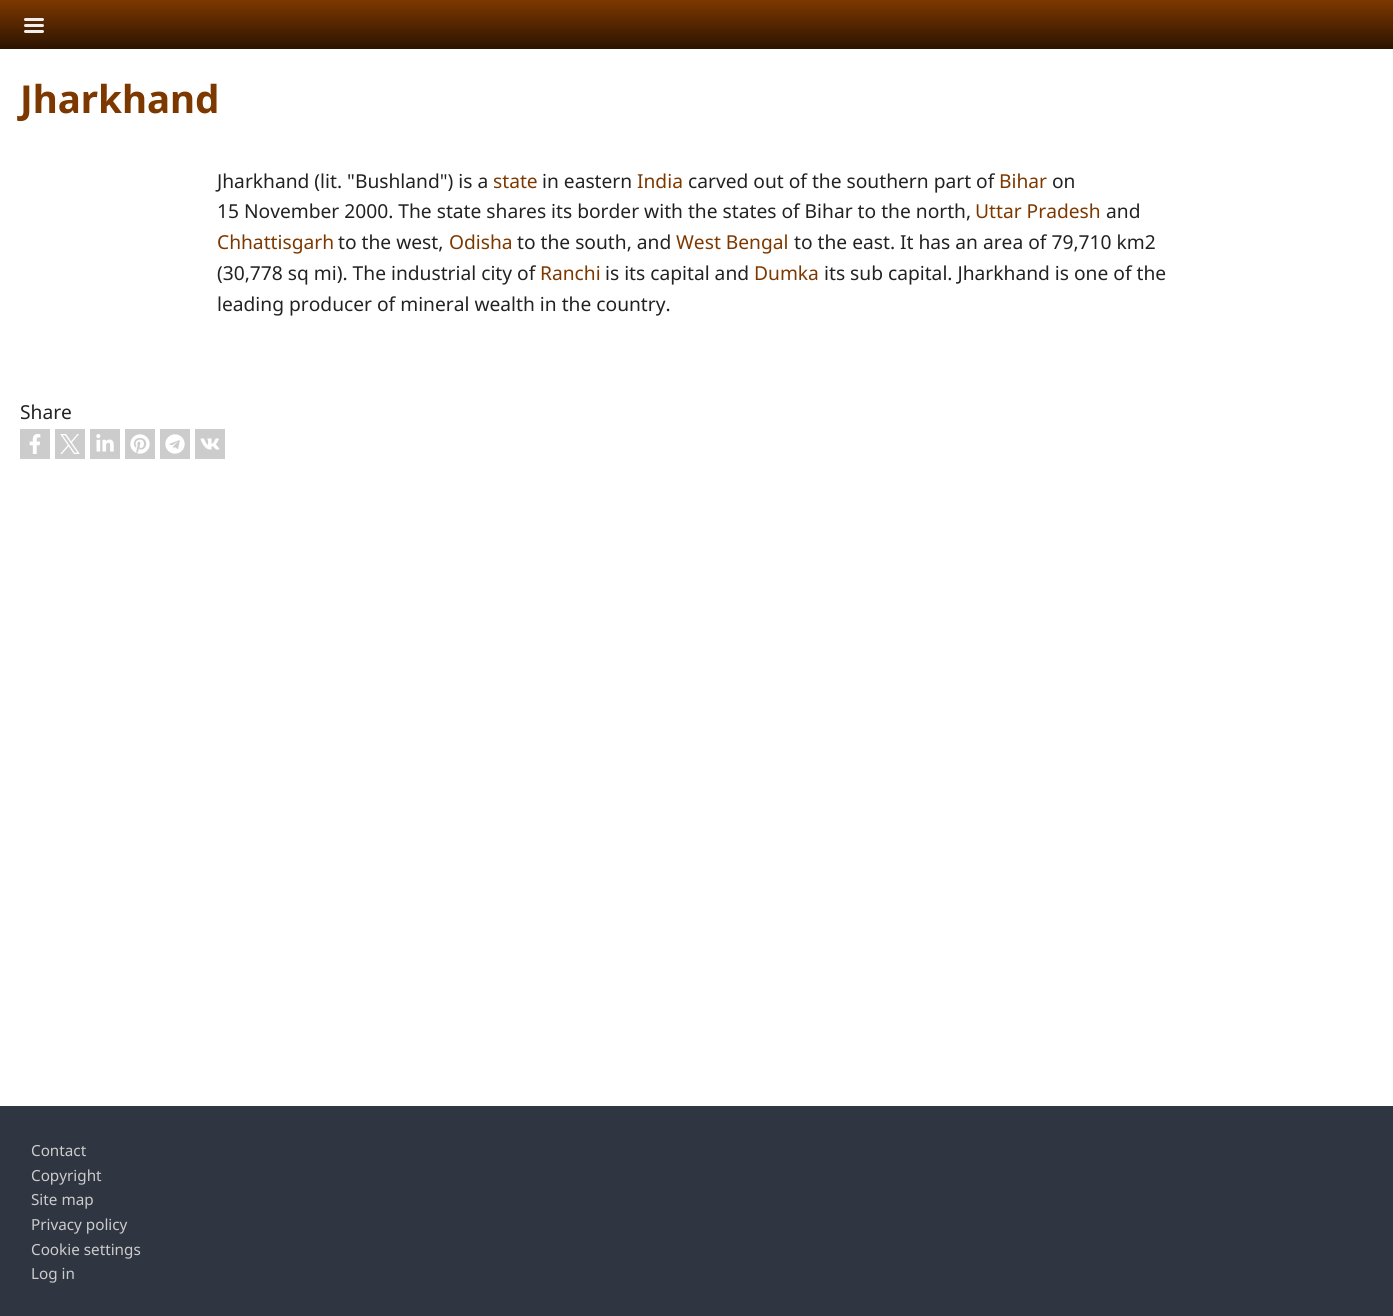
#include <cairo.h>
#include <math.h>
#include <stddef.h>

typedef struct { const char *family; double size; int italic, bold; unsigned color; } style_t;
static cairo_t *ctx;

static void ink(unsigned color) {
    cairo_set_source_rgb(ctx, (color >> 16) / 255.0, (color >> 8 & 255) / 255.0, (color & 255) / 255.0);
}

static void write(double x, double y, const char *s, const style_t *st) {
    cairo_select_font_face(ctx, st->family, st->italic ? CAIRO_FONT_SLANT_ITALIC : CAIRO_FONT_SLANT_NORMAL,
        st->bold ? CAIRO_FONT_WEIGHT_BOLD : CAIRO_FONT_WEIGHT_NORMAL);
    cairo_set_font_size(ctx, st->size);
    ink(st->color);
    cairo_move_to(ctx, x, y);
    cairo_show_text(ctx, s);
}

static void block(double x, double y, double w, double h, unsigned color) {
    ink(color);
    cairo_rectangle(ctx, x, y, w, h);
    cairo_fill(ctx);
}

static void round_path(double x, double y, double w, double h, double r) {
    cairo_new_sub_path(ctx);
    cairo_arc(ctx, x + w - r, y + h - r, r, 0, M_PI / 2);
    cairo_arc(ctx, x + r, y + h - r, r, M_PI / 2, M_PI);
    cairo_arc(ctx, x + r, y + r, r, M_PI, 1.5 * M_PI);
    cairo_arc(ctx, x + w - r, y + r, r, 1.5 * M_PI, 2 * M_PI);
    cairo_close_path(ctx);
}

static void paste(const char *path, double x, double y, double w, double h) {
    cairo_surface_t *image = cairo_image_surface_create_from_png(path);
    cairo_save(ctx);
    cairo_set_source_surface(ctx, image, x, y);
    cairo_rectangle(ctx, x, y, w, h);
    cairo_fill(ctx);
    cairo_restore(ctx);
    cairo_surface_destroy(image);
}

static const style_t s1 = {"Noto Sans", 38.5, 0, 1, 0x7d3800};
static const style_t s2 = {"Noto Sans", 19.2, 0, 0, 0x222222};
static const style_t s3 = {"Noto Sans", 19.2, 0, 0, 0x7d3800};
static const style_t s4 = {"Noto Sans", 15.25, 0, 0, 0xcccccc};

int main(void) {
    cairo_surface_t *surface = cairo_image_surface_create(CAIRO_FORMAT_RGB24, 1393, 1316);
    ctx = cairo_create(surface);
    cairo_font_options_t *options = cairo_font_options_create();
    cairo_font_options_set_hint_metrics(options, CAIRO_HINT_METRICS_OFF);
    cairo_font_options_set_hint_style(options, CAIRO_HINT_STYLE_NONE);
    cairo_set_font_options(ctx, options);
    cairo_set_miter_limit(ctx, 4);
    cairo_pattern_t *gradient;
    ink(0xffffff);
    cairo_paint(ctx);
    gradient = cairo_pattern_create_linear(697, 0, 697, 49);
    cairo_pattern_add_color_stop_rgba(gradient, 0, 0.49, 0.22, 0, 1);
    cairo_pattern_add_color_stop_rgba(gradient, 1, 0.173, 0.078, 0.004, 1);
    cairo_set_source(ctx, gradient);
    cairo_pattern_destroy(gradient);
    cairo_rectangle(ctx, 0, 0, 1393, 49);
    cairo_fill(ctx);
    ink(0xefefef);
    round_path(24, 18, 20, 3, 1.5);
    cairo_fill(ctx);
    round_path(24, 24, 20, 3, 1.5);
    cairo_fill(ctx);
    round_path(24, 30, 20, 3, 1.5);
    cairo_fill(ctx);
    write(20, 113, "Jharkhand", &s1);
    write(217, 188, "Jharkhand (lit. \"Bushland\") is a", &s2);
    write(493, 188, "state", &s3);
    write(542, 188, "in eastern", &s2);
    write(637, 188, "India", &s3);
    write(688, 188, "carved out of the southern part of", &s2);
    write(999, 188, "Bihar", &s3);
    write(1052, 188, "on", &s2);
    write(217, 218, "15 November 2000. The state shares its border with the states of Bihar to the north,", &s2);
    write(975, 218, "Uttar Pradesh", &s3);
    write(1106, 218, "and", &s2);
    write(217, 249, "Chhattisgarh", &s3);
    write(338, 249, "to the west,", &s2);
    write(449, 249, "Odisha", &s3);
    write(517, 249, "to the south, and", &s2);
    write(676, 249, "West Bengal", &s3);
    write(794, 249, "to the east. It has an area of 79,710 km2", &s2);
    write(217, 280, "(30,778 sq mi). The industrial city of", &s2);
    write(540, 280, "Ranchi", &s3);
    write(605, 280, "is its capital and", &s2);
    write(754, 280, "Dumka", &s3);
    write(824, 280, "its sub capital. Jharkhand is one of the", &s2);
    write(217, 311, "leading producer of mineral wealth in the country.", &s2);
    write(20, 419, "Share", &s2);
    block(20, 429, 30, 30, 0xcccccc);
    paste("pic1.png", 29, 434, 12, 20);
    block(55, 429, 30, 30, 0xcccccc);
    paste("pic2.png", 60, 434, 20, 20);
    block(90, 429, 30, 30, 0xcccccc);
    paste("pic3.png", 96, 434, 18, 18);
    block(125, 429, 30, 30, 0xcccccc);
    paste("pic4.png", 130, 434, 20, 20);
    block(160, 429, 30, 30, 0xcccccc);
    paste("pic5.png", 165, 434, 20, 20);
    block(195, 429, 30, 30, 0xcccccc);
    paste("pic6.png", 200, 438, 20, 12);
    block(0, 1106, 1393, 210, 0x303641);
    write(31, 1156, "Contact", &s4);
    write(31, 1181, "Copyright", &s4);
    write(31, 1205, "Site map", &s4);
    write(31, 1230, "Privacy policy", &s4);
    write(31, 1255, "Cookie settings", &s4);
    write(31, 1279, "Log in", &s4);
    cairo_surface_write_to_png(surface, "screenshot.png");
    cairo_font_options_destroy(options);
    cairo_destroy(ctx);
    cairo_surface_destroy(surface);
    return 0;
}
